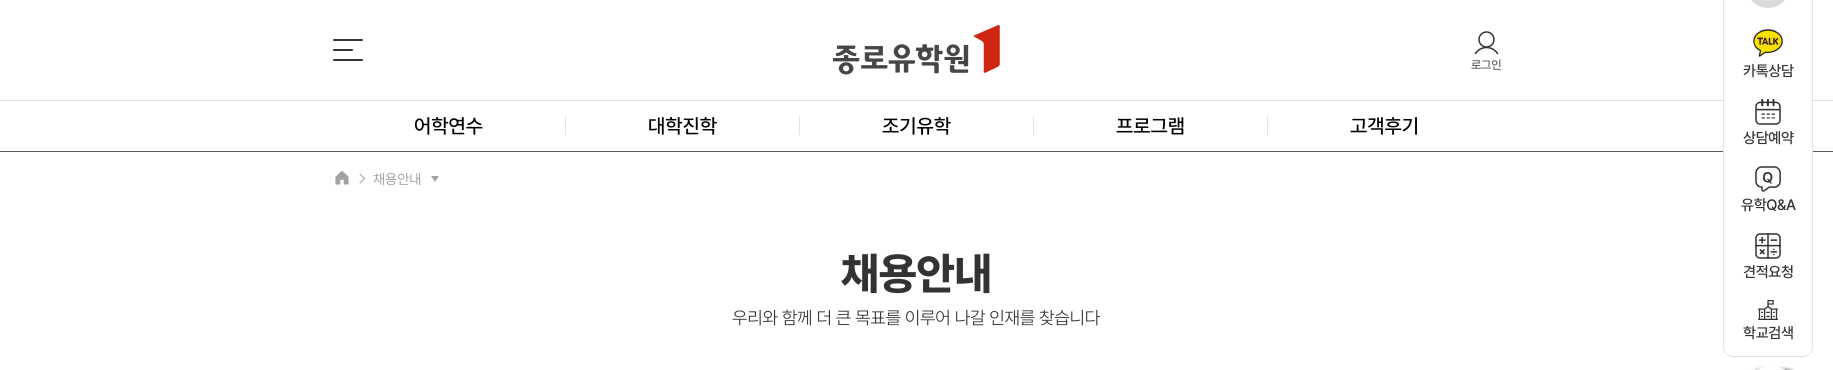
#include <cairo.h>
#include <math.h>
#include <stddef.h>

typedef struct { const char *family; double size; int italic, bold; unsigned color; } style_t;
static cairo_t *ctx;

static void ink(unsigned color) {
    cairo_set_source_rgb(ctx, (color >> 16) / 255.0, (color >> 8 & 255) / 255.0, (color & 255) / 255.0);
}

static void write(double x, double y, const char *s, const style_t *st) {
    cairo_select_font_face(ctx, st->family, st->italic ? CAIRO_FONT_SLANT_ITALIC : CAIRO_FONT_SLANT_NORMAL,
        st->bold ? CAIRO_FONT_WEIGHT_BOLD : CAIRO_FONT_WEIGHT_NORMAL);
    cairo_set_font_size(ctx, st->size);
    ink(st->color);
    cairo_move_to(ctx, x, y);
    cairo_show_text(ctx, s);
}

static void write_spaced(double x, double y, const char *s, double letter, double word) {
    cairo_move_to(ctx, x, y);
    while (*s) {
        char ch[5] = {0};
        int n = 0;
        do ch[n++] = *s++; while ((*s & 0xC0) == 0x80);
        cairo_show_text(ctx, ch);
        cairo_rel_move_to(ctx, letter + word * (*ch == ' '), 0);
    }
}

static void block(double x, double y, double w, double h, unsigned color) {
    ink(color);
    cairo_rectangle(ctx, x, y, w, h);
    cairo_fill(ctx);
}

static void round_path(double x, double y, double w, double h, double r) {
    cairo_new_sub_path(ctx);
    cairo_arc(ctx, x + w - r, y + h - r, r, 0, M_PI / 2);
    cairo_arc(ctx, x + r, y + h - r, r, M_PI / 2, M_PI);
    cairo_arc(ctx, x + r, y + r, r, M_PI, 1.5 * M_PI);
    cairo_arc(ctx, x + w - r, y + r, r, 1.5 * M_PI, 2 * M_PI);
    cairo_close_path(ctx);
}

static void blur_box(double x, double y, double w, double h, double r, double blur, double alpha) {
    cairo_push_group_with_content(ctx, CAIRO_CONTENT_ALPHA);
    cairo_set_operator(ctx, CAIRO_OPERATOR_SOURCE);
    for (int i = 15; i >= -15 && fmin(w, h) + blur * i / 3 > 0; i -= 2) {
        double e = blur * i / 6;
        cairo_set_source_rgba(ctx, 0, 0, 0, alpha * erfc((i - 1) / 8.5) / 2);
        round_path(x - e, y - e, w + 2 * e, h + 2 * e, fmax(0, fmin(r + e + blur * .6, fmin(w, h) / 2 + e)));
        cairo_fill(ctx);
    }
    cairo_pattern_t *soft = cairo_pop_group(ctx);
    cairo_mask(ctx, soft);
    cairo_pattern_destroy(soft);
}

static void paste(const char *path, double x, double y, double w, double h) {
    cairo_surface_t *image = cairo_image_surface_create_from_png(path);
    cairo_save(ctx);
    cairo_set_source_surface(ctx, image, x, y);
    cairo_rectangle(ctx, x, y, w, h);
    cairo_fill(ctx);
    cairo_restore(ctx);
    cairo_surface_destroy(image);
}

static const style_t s1 = {"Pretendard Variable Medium", 20, 0, 0, 0x000000};
static const style_t s2 = {"Pretendard Variable", 14, 0, 0, 0xa2a2a2};

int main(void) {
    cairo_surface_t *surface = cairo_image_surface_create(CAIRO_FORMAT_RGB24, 1833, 370);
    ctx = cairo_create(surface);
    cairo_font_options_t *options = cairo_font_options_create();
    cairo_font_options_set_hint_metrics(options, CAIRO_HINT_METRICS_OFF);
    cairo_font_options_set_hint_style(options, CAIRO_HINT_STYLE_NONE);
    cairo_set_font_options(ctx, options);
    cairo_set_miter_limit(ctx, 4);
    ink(0xffffff);
    cairo_paint(ctx);
    block(0, 151, 1833, 1, 0x5a5a5a);
    paste("pic1.png", 332, 39, 32, 22);
    paste("pic2.png", 833, 25, 167, 50);
    cairo_arc(ctx, 1486.5, 39.5, 7.5, 0, 2 * M_PI);
    ink(0x333333);
    cairo_set_line_width(ctx, 1.5);
    cairo_stroke(ctx);
    cairo_new_path(ctx);
    cairo_move_to(ctx, 1475.5, 53.5);
    cairo_curve_to(ctx, 1480.5, 45.5, 1492.5, 45.5, 1497.5, 53.5);
    cairo_set_line_cap(ctx, CAIRO_LINE_CAP_ROUND);
    cairo_set_line_join(ctx, CAIRO_LINE_JOIN_ROUND);
    cairo_stroke(ctx);
    cairo_select_font_face(ctx, "Pretendard Variable Medium", CAIRO_FONT_SLANT_NORMAL, CAIRO_FONT_WEIGHT_NORMAL);
    cairo_set_font_size(ctx, 12);
    ink(0x5a5a5a);
    write_spaced(1471, 69, "로그인", -0.3, 0);
    block(0, 100, 1833, 1, 0xe3e3e3);
    write(414, 133, "어학연수", &s1);
    block(565, 116, 1, 19, 0xe3e3e3);
    write(648, 133, "대학진학", &s1);
    block(799, 116, 1, 19, 0xe3e3e3);
    write(882, 133, "조기유학", &s1);
    block(1033, 116, 1, 19, 0xe3e3e3);
    write(1116, 133, "프로그램", &s1);
    block(1267, 116, 1, 19, 0xe3e3e3);
    write(1350, 133, "고객후기", &s1);
    ink(0xffffff);
    round_path(1723.5, -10.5, 89, 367, 9.5);
    cairo_fill_preserve(ctx);
    ink(0xe3e3e3);
    cairo_set_line_width(ctx, 1);
    cairo_set_line_cap(ctx, CAIRO_LINE_CAP_BUTT);
    cairo_set_line_join(ctx, CAIRO_LINE_JOIN_MITER);
    cairo_stroke(ctx);
    ink(0xdcdcdc);
    round_path(1746, -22, 44, 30, 22);
    cairo_fill(ctx);
    paste("pic3.png", 1753, 29, 30, 28);
    cairo_set_font_size(ctx, 15);
    ink(0x333333);
    write_spaced(1743, 76, "카톡상담", -0.3, 0);
    paste("pic4.png", 1755, 99, 26, 26);
    write_spaced(1743, 143, "상담예약", -0.3, 0);
    paste("pic5.png", 1755, 166, 26, 26);
    write_spaced(1741, 210, "유학Q&A", -0.3, 0);
    paste("pic6.png", 1755, 233, 26, 26);
    write_spaced(1743, 277, "견적요청", -0.3, 0);
    paste("pic7.png", 1758, 300, 20, 20);
    write_spaced(1743, 338, "학교검색", -0.3, 0);
    ink(0x000000);
    blur_box(1746, 369, 56, 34, 28, 1.5, 0.5);
    ink(0xffffff);
    round_path(1743, 366, 56, 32, 28);
    cairo_fill(ctx);
    paste("pic8.png", 335, 171, 14, 14);
    cairo_new_path(ctx);
    cairo_move_to(ctx, 360, 174);
    cairo_line_to(ctx, 364.5, 178.5);
    cairo_line_to(ctx, 360, 183);
    ink(0xa2a2a2);
    cairo_set_line_cap(ctx, CAIRO_LINE_CAP_ROUND);
    cairo_set_line_join(ctx, CAIRO_LINE_JOIN_ROUND);
    cairo_stroke(ctx);
    paste("pic9.png", 431, 176, 8, 6);
    write(373, 184, "채용안내", &s2);
    cairo_select_font_face(ctx, "Pretendard Variable ExtraBold", CAIRO_FONT_SLANT_NORMAL, CAIRO_FONT_WEIGHT_NORMAL);
    cairo_set_font_size(ctx, 44);
    ink(0x333333);
    write_spaced(841, 289, "채용안내", -0.3, 0);
    cairo_select_font_face(ctx, "Pretendard Variable Light", CAIRO_FONT_SLANT_NORMAL, CAIRO_FONT_WEIGHT_NORMAL);
    cairo_set_font_size(ctx, 18);
    write_spaced(732, 324, "우리와 함께 더 큰 목표를 이루어 나갈 인재를 찾습니다", -0.3, 0);
    cairo_surface_write_to_png(surface, "screenshot.png");
    cairo_font_options_destroy(options);
    cairo_destroy(ctx);
    cairo_surface_destroy(surface);
    return 0;
}
